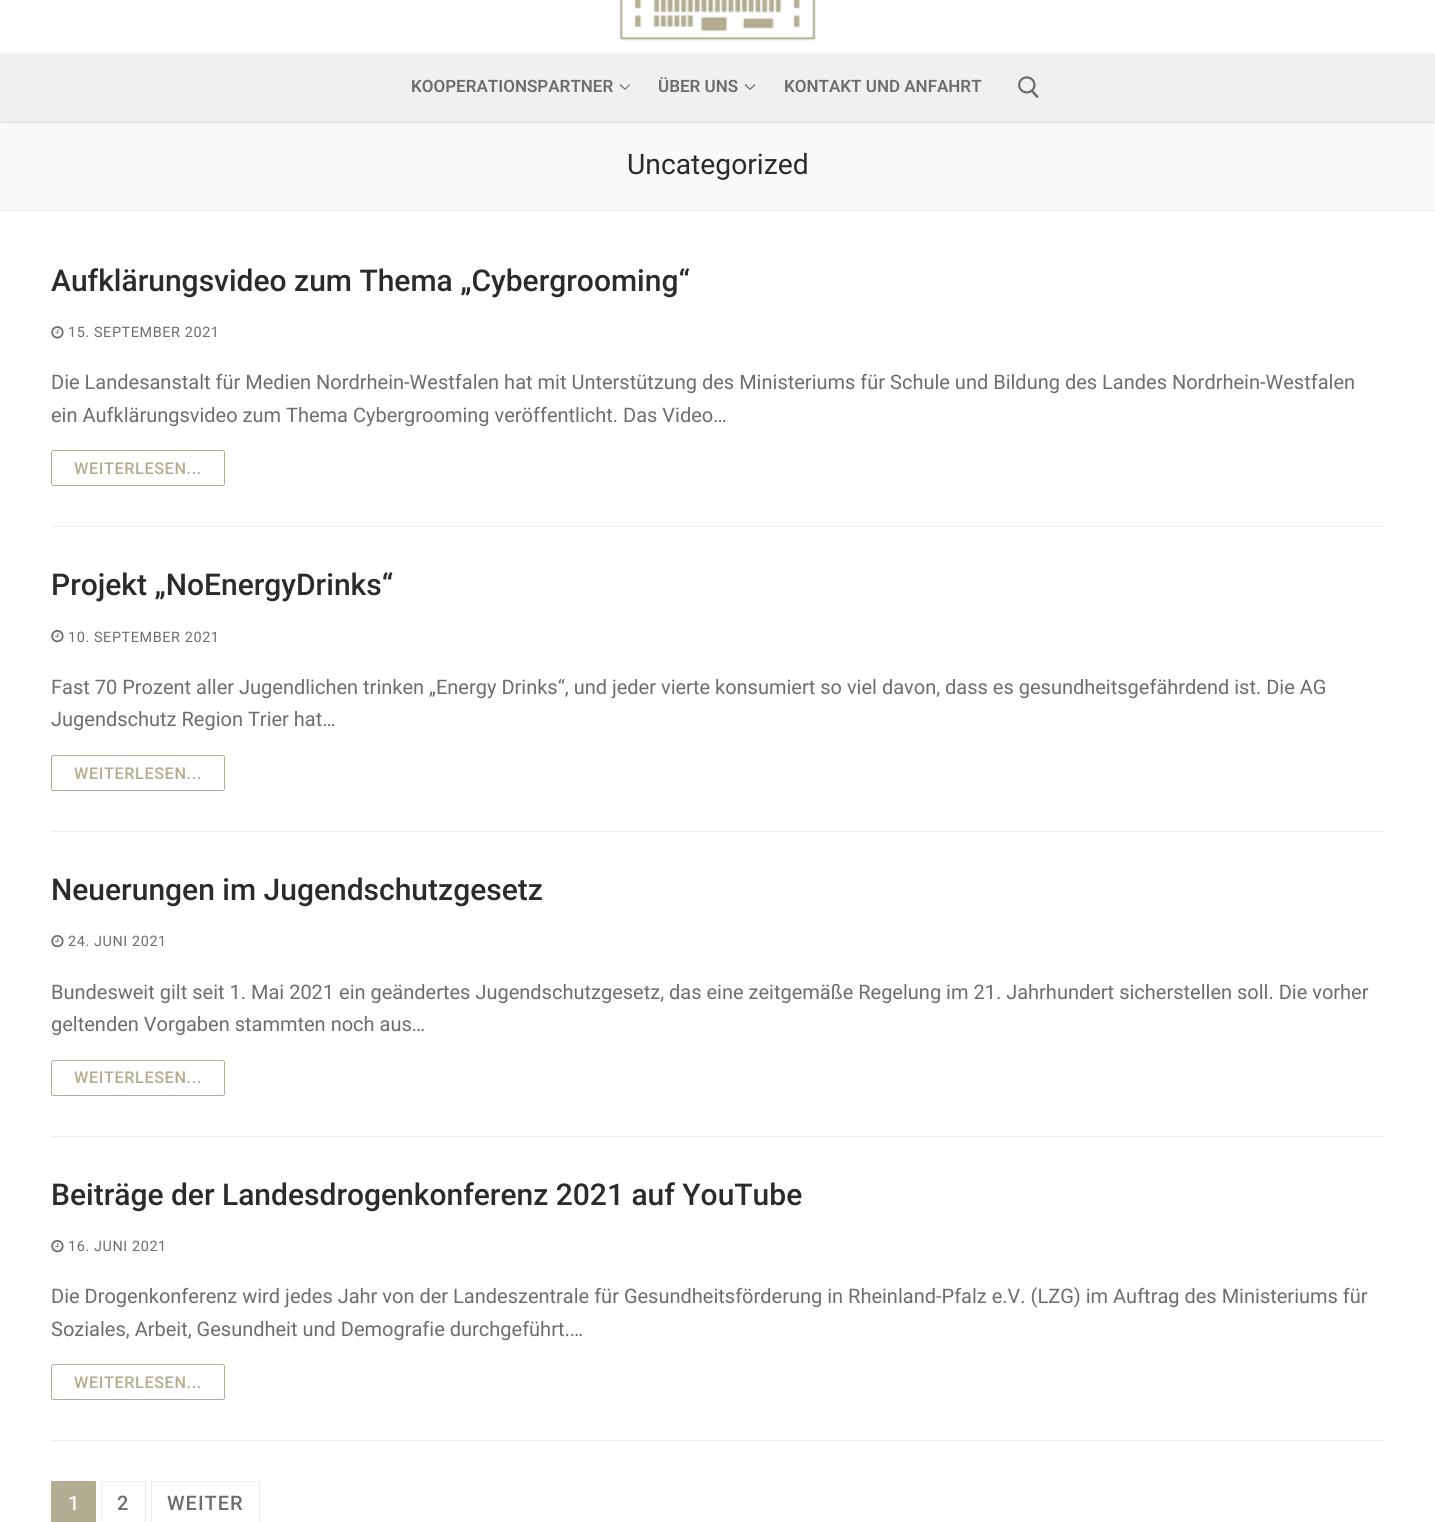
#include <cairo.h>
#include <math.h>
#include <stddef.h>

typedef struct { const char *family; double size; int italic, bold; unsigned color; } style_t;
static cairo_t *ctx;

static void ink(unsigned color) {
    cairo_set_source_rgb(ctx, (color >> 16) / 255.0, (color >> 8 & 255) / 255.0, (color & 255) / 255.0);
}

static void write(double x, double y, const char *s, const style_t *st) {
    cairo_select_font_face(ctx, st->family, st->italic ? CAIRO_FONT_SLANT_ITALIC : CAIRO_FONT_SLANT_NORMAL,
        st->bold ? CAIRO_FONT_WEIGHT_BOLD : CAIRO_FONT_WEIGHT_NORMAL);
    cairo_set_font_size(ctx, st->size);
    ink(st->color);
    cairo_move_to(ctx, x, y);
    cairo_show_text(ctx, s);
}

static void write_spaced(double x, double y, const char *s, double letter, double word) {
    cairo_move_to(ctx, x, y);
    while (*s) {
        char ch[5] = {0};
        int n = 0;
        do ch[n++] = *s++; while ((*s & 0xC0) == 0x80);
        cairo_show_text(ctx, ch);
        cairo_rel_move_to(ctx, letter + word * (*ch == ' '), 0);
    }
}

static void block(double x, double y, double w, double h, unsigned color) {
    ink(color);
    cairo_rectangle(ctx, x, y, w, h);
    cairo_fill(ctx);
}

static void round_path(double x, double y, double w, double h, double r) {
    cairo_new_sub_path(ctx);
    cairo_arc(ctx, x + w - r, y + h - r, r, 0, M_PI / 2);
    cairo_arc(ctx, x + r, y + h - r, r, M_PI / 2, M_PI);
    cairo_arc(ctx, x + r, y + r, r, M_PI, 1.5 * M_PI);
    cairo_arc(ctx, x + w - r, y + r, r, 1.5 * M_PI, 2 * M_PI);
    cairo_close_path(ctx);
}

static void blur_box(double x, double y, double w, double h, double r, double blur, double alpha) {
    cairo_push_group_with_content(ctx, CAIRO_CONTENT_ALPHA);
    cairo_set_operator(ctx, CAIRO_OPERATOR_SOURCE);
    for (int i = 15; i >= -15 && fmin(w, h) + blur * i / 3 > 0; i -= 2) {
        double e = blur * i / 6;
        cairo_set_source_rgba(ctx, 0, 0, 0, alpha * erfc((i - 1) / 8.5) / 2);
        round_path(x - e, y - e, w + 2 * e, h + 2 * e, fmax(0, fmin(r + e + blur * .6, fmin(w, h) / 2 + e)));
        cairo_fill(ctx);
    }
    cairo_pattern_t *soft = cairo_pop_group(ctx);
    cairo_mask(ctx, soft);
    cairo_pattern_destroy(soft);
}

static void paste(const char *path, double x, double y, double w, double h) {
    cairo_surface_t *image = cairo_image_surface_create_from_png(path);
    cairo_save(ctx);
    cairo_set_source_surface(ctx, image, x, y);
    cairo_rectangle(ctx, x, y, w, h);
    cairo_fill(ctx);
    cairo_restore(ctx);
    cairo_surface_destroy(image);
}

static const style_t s1 = {"Roboto SemiBold", 17, 0, 0, 0x6d6d6d};
static const style_t s2 = {"Roboto", 28.25, 0, 0, 0x2b2b2b};
static const style_t s3 = {"Roboto Medium", 30, 0, 0, 0x2b2b2b};
static const style_t s4 = {"Roboto", 20, 0, 0, 0x6d6d6d};

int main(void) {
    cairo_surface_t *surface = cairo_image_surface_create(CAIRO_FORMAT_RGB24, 1435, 1522);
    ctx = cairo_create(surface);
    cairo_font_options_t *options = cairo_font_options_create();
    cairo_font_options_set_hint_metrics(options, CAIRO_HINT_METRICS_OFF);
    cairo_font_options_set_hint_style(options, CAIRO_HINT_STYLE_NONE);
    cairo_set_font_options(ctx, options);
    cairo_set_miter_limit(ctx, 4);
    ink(0xffffff);
    cairo_paint(ctx);
    paste("pic1.png", 619, 0, 197, 41);
    block(0, 121, 1435, 89, 0xf9f9f9);
    ink(0xe1e5ea);
    blur_box(0, 54, 1435, 69, 0, 1, 1);
    block(0, 53, 1435, 68, 0xf0f0f0);
    write(411, 92, "KOOPERATIONSPARTNER", &s1);
    ink(0x6c6c6c);
    cairo_new_path(ctx);
    cairo_move_to(ctx, 625, 90);
    cairo_line_to(ctx, 619.5, 85);
    cairo_line_to(ctx, 620.5, 84);
    cairo_line_to(ctx, 625, 88.5);
    cairo_close_path(ctx);
    cairo_move_to(ctx, 630, 85);
    cairo_line_to(ctx, 625, 90);
    cairo_line_to(ctx, 625, 88.5);
    cairo_line_to(ctx, 629.5, 84);
    cairo_close_path(ctx);
    cairo_fill(ctx);
    write(658, 92, "ÜBER UNS", &s1);
    ink(0x6c6c6c);
    cairo_new_path(ctx);
    cairo_move_to(ctx, 750, 90);
    cairo_line_to(ctx, 744.5, 85);
    cairo_line_to(ctx, 745.5, 84);
    cairo_line_to(ctx, 750, 88.5);
    cairo_close_path(ctx);
    cairo_move_to(ctx, 755.5, 85);
    cairo_line_to(ctx, 750, 90);
    cairo_line_to(ctx, 750, 88.5);
    cairo_line_to(ctx, 754.5, 84);
    cairo_close_path(ctx);
    cairo_fill(ctx);
    write(784, 92, "KONTAKT UND ANFAHRT", &s1);
    paste("pic2.png", 1018, 76, 21, 23);
    block(0, 210, 1435, 1, 0xeaecee);
    write(627, 174, "Uncategorized", &s2);
    block(51, 526, 1333, 1, 0xeaecee);
    write(51, 291, "Aufklärungsvideo zum Thema „Cybergrooming“", &s3);
    paste("pic3.png", 51, 326, 13, 13);
    cairo_select_font_face(ctx, "Roboto", CAIRO_FONT_SLANT_NORMAL, CAIRO_FONT_WEIGHT_NORMAL);
    cairo_set_font_size(ctx, 14.4);
    ink(0x6d6d6d);
    write_spaced(68, 337, "15. SEPTEMBER 2021", 0.6, 0);
    write(51, 389, "Die Landesanstalt für Medien Nordrhein-Westfalen hat mit Unterstützung des Ministeriums für Schule und Bildung des Landes Nordrhein-Westfalen", &s4);
    write(51, 422, "ein Aufklärungsvideo zum Thema Cybergrooming veröffentlicht. Das Video…", &s4);
    round_path(51.5, 450.5, 173, 35, 2);
    ink(0xb2ad90);
    cairo_set_line_width(ctx, 1);
    cairo_stroke(ctx);
    cairo_select_font_face(ctx, "Roboto Medium", CAIRO_FONT_SLANT_NORMAL, CAIRO_FONT_WEIGHT_NORMAL);
    cairo_set_font_size(ctx, 16.25);
    write_spaced(74, 474, "WEITERLESEN...", 0.6, 0);
    block(51, 831, 1333, 1, 0xeaecee);
    write(51, 595, "Projekt „NoEnergyDrinks“", &s3);
    paste("pic4.png", 51, 629, 13, 14);
    cairo_select_font_face(ctx, "Roboto", CAIRO_FONT_SLANT_NORMAL, CAIRO_FONT_WEIGHT_NORMAL);
    cairo_set_font_size(ctx, 14.4);
    ink(0x6d6d6d);
    write_spaced(68, 642, "10. SEPTEMBER 2021", 0.6, 0);
    write(51, 694, "Fast 70 Prozent aller Jugendlichen trinken „Energy Drinks“, und jeder vierte konsumiert so viel davon, dass es gesundheitsgefährdend ist. Die AG", &s4);
    write(51, 726, "Jugendschutz Region Trier hat…", &s4);
    round_path(51.5, 755.5, 173, 35, 2);
    ink(0xb2ad90);
    cairo_stroke(ctx);
    cairo_select_font_face(ctx, "Roboto Medium", CAIRO_FONT_SLANT_NORMAL, CAIRO_FONT_WEIGHT_NORMAL);
    cairo_set_font_size(ctx, 16.25);
    write_spaced(74, 779, "WEITERLESEN...", 0.6, 0);
    block(51, 1136, 1333, 1, 0xeaecee);
    write(51, 900, "Neuerungen im Jugendschutzgesetz", &s3);
    paste("pic4.png", 51, 934, 13, 14);
    cairo_select_font_face(ctx, "Roboto", CAIRO_FONT_SLANT_NORMAL, CAIRO_FONT_WEIGHT_NORMAL);
    cairo_set_font_size(ctx, 14.4);
    ink(0x6d6d6d);
    write_spaced(68, 946, "24. JUNI 2021", 0.6, 0);
    write(51, 999, "Bundesweit gilt seit 1. Mai 2021 ein geändertes Jugendschutzgesetz, das eine zeitgemäße Regelung im 21. Jahrhundert sicherstellen soll. Die vorher", &s4);
    write(51, 1031, "geltenden Vorgaben stammten noch aus…", &s4);
    round_path(51.5, 1060.5, 173, 35, 2);
    ink(0xb2ad90);
    cairo_stroke(ctx);
    cairo_select_font_face(ctx, "Roboto Medium", CAIRO_FONT_SLANT_NORMAL, CAIRO_FONT_WEIGHT_NORMAL);
    cairo_set_font_size(ctx, 16.25);
    write_spaced(74, 1083, "WEITERLESEN...", 0.6, 0);
    block(51, 1440, 1333, 1, 0xeaecee);
    write(51, 1205, "Beiträge der Landesdrogenkonferenz 2021 auf YouTube", &s3);
    paste("pic4.png", 51, 1239, 13, 14);
    cairo_select_font_face(ctx, "Roboto", CAIRO_FONT_SLANT_NORMAL, CAIRO_FONT_WEIGHT_NORMAL);
    cairo_set_font_size(ctx, 14.4);
    ink(0x6d6d6d);
    write_spaced(68, 1251, "16. JUNI 2021", 0.6, 0);
    write(51, 1303, "Die Drogenkonferenz wird jedes Jahr von der Landeszentrale für Gesundheitsförderung in Rheinland-Pfalz e.V. (LZG) im Auftrag des Ministeriums für", &s4);
    write(51, 1336, "Soziales, Arbeit, Gesundheit und Demografie durchgeführt.…", &s4);
    round_path(51.5, 1364.5, 173, 35, 2);
    ink(0xb2ad90);
    cairo_stroke(ctx);
    cairo_select_font_face(ctx, "Roboto Medium", CAIRO_FONT_SLANT_NORMAL, CAIRO_FONT_WEIGHT_NORMAL);
    cairo_set_font_size(ctx, 16.25);
    write_spaced(74, 1388, "WEITERLESEN...", 0.6, 0);
    round_path(51.5, 1481.5, 44, 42, 0.5);
    cairo_fill_preserve(ctx);
    cairo_stroke(ctx);
    cairo_set_font_size(ctx, 20);
    ink(0xffffff);
    write_spaced(68, 1510, "1", 1, 0);
    round_path(101.5, 1481.5, 44, 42, 0.5);
    ink(0xeaecee);
    cairo_stroke(ctx);
    ink(0x6d6d6d);
    write_spaced(117, 1510, "2", 1, 0);
    round_path(151.5, 1481.5, 108, 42, 0.5);
    ink(0xeaecee);
    cairo_stroke(ctx);
    ink(0x6d6d6d);
    write_spaced(167, 1510, "WEITER", 1, 0);
    cairo_surface_write_to_png(surface, "screenshot.png");
    cairo_font_options_destroy(options);
    cairo_destroy(ctx);
    cairo_surface_destroy(surface);
    return 0;
}
